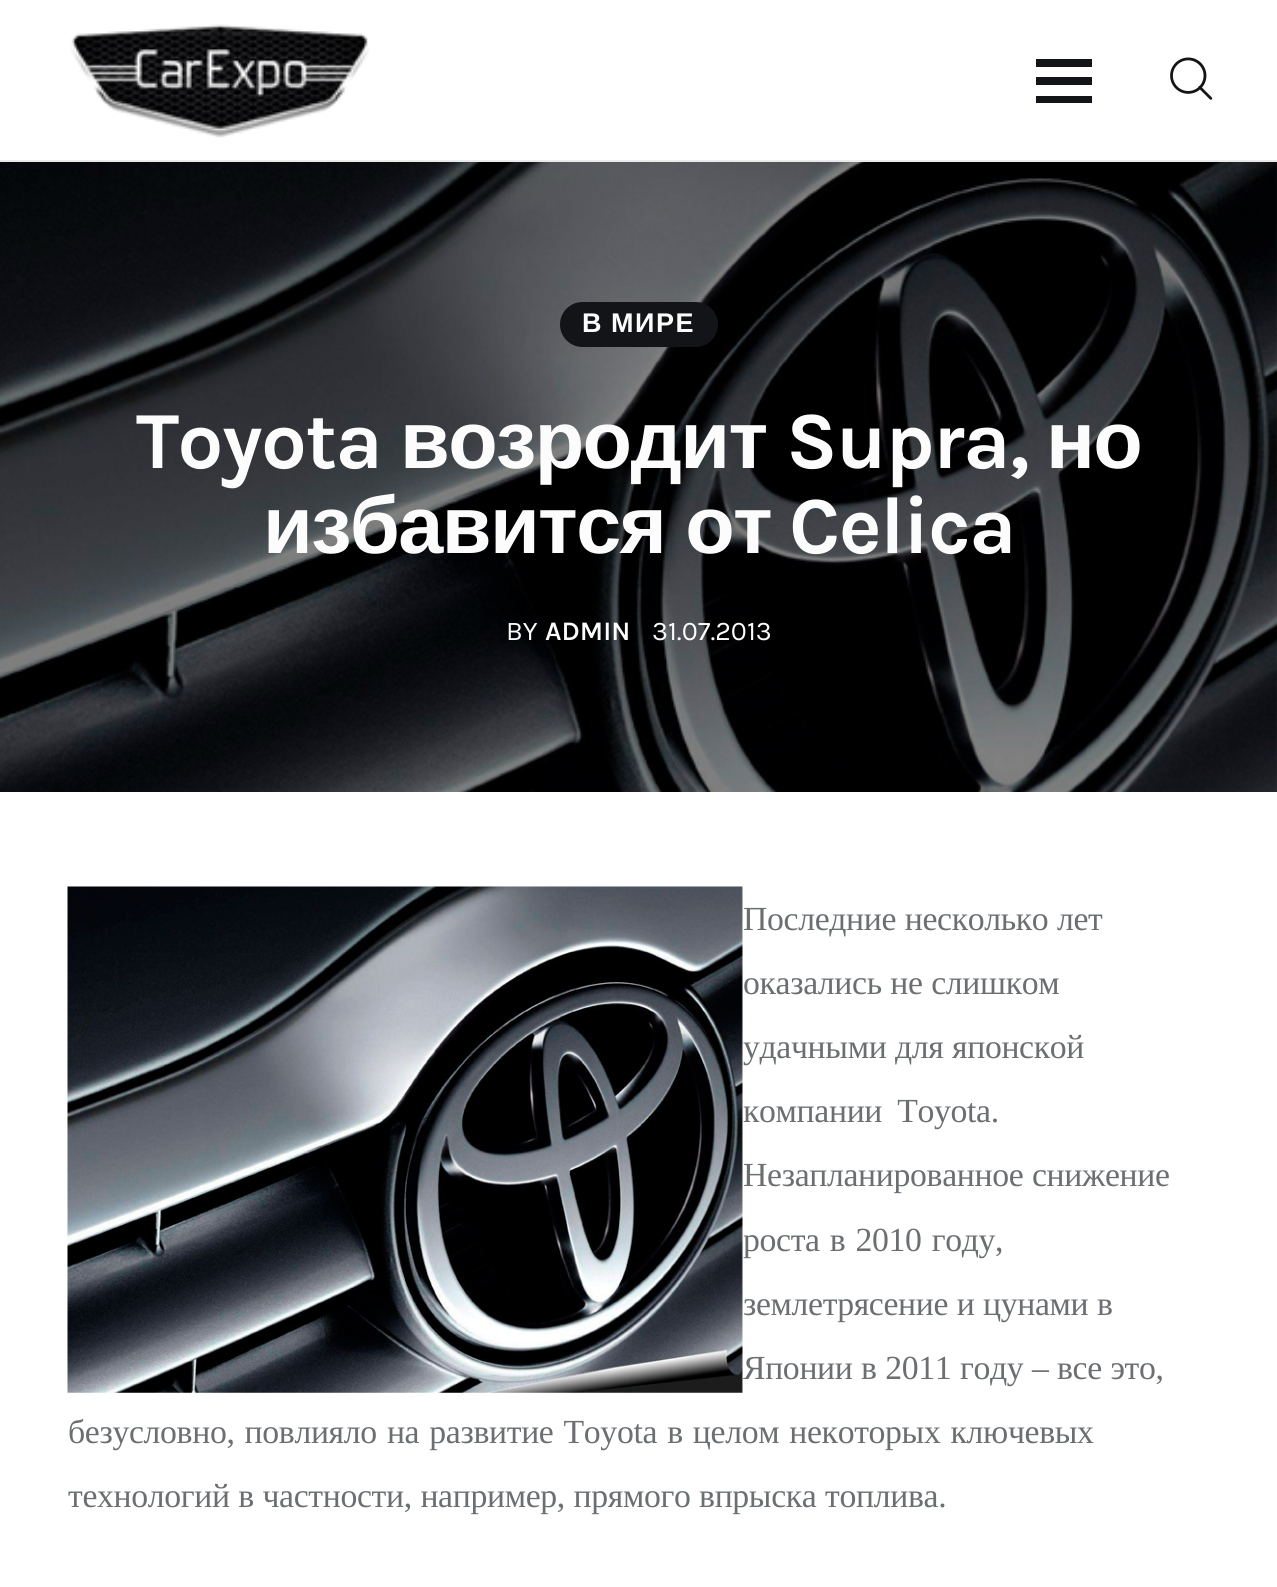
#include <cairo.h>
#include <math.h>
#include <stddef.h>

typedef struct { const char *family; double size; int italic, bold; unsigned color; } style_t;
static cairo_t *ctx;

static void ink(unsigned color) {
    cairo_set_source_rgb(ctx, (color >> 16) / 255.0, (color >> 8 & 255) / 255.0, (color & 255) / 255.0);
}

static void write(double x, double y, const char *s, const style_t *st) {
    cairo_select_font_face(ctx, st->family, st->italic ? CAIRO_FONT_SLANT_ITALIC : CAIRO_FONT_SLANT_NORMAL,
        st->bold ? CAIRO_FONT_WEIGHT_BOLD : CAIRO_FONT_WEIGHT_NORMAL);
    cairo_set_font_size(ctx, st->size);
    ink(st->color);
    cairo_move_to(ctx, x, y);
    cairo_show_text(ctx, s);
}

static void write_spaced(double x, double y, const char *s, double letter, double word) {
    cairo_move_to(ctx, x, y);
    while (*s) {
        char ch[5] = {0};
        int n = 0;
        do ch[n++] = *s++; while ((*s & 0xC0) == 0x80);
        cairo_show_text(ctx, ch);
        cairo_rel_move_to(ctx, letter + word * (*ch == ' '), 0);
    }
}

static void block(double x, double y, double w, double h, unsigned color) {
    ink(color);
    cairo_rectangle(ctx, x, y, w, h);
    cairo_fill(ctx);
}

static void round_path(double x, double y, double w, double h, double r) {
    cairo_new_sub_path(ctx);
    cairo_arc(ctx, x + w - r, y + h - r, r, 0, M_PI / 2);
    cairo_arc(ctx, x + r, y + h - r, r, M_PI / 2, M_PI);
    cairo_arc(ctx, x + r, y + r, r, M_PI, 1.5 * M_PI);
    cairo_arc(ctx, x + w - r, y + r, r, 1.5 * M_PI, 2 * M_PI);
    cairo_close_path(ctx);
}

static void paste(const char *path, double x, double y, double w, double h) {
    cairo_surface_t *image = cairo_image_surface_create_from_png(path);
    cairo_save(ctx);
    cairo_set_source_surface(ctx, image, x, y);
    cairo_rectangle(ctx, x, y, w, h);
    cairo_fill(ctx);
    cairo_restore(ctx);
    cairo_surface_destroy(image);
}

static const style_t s1 = {"Karla", 27, 0, 0, 0xfcfcfc};
static const style_t s2 = {"Karla SemiBold", 27, 0, 0, 0xfcfcfc};

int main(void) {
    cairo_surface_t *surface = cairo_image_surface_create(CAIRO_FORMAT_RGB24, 1277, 1587);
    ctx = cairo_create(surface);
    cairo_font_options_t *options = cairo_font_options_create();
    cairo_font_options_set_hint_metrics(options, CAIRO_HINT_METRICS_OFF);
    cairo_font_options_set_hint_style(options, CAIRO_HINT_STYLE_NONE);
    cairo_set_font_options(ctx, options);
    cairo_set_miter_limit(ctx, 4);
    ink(0xffffff);
    cairo_paint(ctx);
    block(0, 160, 1277, 2, 0xeaeaea);
    paste("pic1.png", 70, 24, 300, 114);
    ink(0x121418);
    cairo_new_path(ctx);
    cairo_move_to(ctx, 1036, 103);
    cairo_line_to(ctx, 1092, 103);
    cairo_line_to(ctx, 1092, 96);
    cairo_line_to(ctx, 1036, 96);
    cairo_close_path(ctx);
    cairo_move_to(ctx, 1036, 85);
    cairo_line_to(ctx, 1092, 85);
    cairo_line_to(ctx, 1092, 77);
    cairo_line_to(ctx, 1036, 77);
    cairo_close_path(ctx);
    cairo_move_to(ctx, 1036, 59);
    cairo_line_to(ctx, 1036, 67);
    cairo_line_to(ctx, 1092, 67);
    cairo_line_to(ctx, 1092, 59);
    cairo_close_path(ctx);
    cairo_fill(ctx);
    paste("pic2.png", 1170, 57, 43, 43);
    paste("pic3.png", 0, 162, 1277, 630);
    round_path(560, 302, 158, 45, 22.5);
    cairo_fill(ctx);
    cairo_select_font_face(ctx, "Liberation Sans", CAIRO_FONT_SLANT_NORMAL, CAIRO_FONT_WEIGHT_BOLD);
    cairo_set_font_size(ctx, 27);
    ink(0xfcfcfc);
    write_spaced(582, 332, "В МИРЕ", 1.5, -1);
    cairo_select_font_face(ctx, "Karla", CAIRO_FONT_SLANT_NORMAL, CAIRO_FONT_WEIGHT_BOLD);
    cairo_set_font_size(ctx, 81);
    write_spaced(136, 468, "Toyota", -1.6, 0);
    cairo_select_font_face(ctx, "Liberation Sans", CAIRO_FONT_SLANT_NORMAL, CAIRO_FONT_WEIGHT_BOLD);
    write_spaced(400, 468, "возродит", -1.6, 0);
    cairo_select_font_face(ctx, "Karla", CAIRO_FONT_SLANT_NORMAL, CAIRO_FONT_WEIGHT_BOLD);
    write_spaced(786, 468, "Supra,", -1.6, 0);
    cairo_select_font_face(ctx, "Liberation Sans", CAIRO_FONT_SLANT_NORMAL, CAIRO_FONT_WEIGHT_BOLD);
    write_spaced(1046, 468, "но", -1.6, 0);
    write_spaced(263, 553, "избавится от", -1.6, -1);
    cairo_select_font_face(ctx, "Karla", CAIRO_FONT_SLANT_NORMAL, CAIRO_FONT_WEIGHT_BOLD);
    write_spaced(789, 553, "Celica", -1.6, 0);
    write(506, 640, "BY", &s1);
    write(545, 640, "ADMIN", &s2);
    write(652, 640, "31.07.2013", &s1);
    paste("pic4.png", 67, 886, 676, 507);
    cairo_select_font_face(ctx, "Liberation Serif", CAIRO_FONT_SLANT_NORMAL, CAIRO_FONT_WEIGHT_NORMAL);
    cairo_set_font_size(ctx, 33.75);
    ink(0x6c6f72);
    write_spaced(743, 930, "Последние несколько лет", -0.35, 0.5);
    write_spaced(743, 994, "оказались не слишком", -0.35, 0.5);
    write_spaced(743, 1058, "удачными для японской", -0.35, 0.5);
    write_spaced(743, 1122, "компании Toyota.", -0.35, 7);
    write_spaced(743, 1186, "Незапланированное снижение", -0.35, 0.5);
    write_spaced(743, 1251, "роста в 2010 году,", -0.35, 2);
    write_spaced(743, 1315, "землетрясение и цунами в", -0.35, 0.5);
    write_spaced(743, 1379, "Японии в 2011 году – все это,", -0.35, 0.5);
    write_spaced(68, 1443, "безусловно, повлияло на развитие Toyota в целом некоторых ключевых", -0.35, 2);
    write_spaced(68, 1507, "технологий в частности, например, прямого впрыска топлива.", -0.35, 0.5);
    cairo_surface_write_to_png(surface, "screenshot.png");
    cairo_font_options_destroy(options);
    cairo_destroy(ctx);
    cairo_surface_destroy(surface);
    return 0;
}
